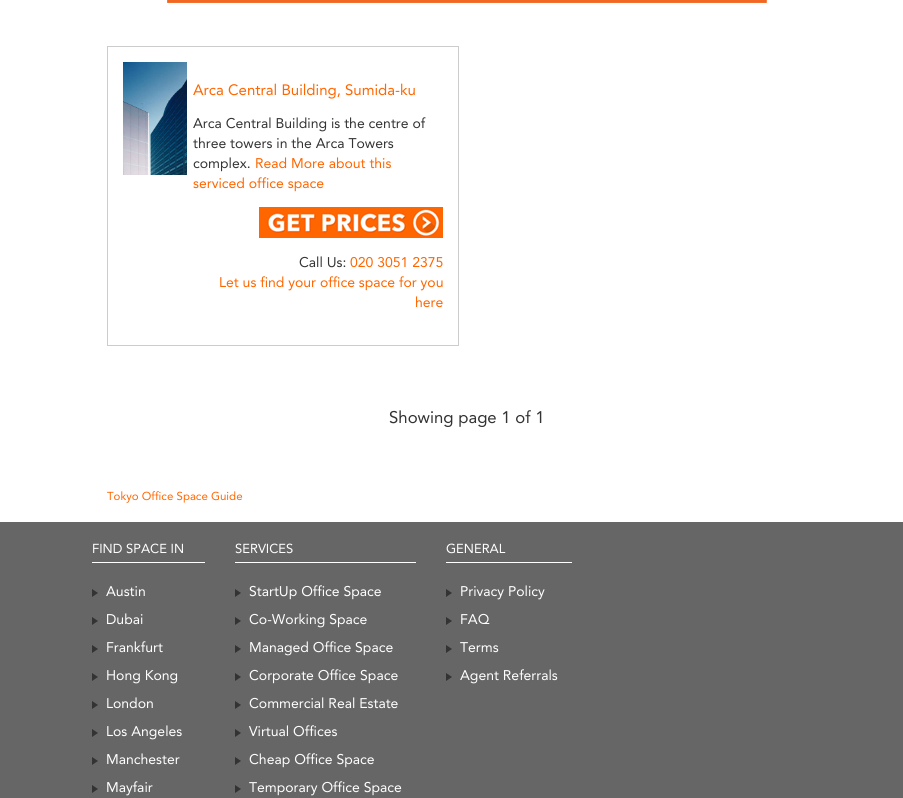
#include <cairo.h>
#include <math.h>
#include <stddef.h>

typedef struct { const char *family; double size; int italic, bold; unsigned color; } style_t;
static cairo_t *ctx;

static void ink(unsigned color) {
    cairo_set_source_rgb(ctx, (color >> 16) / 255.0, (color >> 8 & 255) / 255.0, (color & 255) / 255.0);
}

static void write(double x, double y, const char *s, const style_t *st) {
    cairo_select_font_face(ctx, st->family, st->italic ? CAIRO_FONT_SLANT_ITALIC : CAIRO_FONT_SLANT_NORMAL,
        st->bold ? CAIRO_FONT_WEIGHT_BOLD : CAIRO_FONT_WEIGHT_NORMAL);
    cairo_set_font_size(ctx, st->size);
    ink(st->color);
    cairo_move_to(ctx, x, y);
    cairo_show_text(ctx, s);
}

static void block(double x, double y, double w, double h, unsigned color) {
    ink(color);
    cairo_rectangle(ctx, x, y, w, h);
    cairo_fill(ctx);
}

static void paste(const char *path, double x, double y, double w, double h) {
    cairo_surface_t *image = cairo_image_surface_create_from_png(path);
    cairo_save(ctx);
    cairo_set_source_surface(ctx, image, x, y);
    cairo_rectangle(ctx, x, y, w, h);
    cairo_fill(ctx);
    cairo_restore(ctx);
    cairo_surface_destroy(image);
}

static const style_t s1 = {"Avenir", 15, 0, 0, 0xff6600};
static const style_t s2 = {"Avenir", 14, 0, 0, 0x333333};
static const style_t s3 = {"Avenir", 14, 0, 0, 0xff6600};
static const style_t s4 = {"Avenir", 16.75, 0, 0, 0x333333};
static const style_t s5 = {"Avenir", 11.5, 0, 0, 0xff6600};
static const style_t s6 = {"Avenir", 13, 0, 0, 0xffffff};
static const style_t s7 = {"Avenir", 14, 0, 0, 0xffffff};

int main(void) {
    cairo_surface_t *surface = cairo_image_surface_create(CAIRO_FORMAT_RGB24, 903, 798);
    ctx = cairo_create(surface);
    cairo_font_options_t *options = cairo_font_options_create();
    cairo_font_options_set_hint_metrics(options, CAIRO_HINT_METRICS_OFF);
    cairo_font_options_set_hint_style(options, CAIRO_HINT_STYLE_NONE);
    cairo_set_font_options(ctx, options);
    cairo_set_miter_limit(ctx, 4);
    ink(0xffffff);
    cairo_paint(ctx);
    paste("pic1.png", 167, 0, 600, 3);
    cairo_rectangle(ctx, 107.5, 46.5, 351, 299);
    ink(0xcccccc);
    cairo_set_line_width(ctx, 1);
    cairo_stroke(ctx);
    paste("pic2.png", 123, 62, 64, 113);
    write(193, 95, "Arca Central Building, Sumida-ku", &s1);
    write(193, 128, "Arca Central Building is the centre of", &s2);
    write(193, 148, "three towers in the Arca Towers", &s2);
    write(193, 168, "complex.", &s2);
    write(255, 168, "Read More about this", &s3);
    write(193, 188, "serviced office space", &s3);
    paste("pic3.png", 259, 207, 184, 31);
    write(299, 267, "Call Us:", &s2);
    write(350, 267, "020 3051 2375", &s3);
    write(219, 287, "Let us find your office space for you", &s3);
    write(415, 307, "here", &s3);
    write(389, 423, "Showing page 1 of 1", &s4);
    write(107, 500, "Tokyo Office Space Guide", &s5);
    block(0, 522, 903, 276, 0x666666);
    block(92, 562, 113, 1, 0xffffff);
    write(92, 553, "FIND SPACE IN", &s6);
    ink(0x333333);
    cairo_new_path(ctx);
    cairo_move_to(ctx, 92, 597);
    cairo_line_to(ctx, 92, 589);
    cairo_line_to(ctx, 98, 593);
    cairo_close_path(ctx);
    cairo_move_to(ctx, 92, 625);
    cairo_line_to(ctx, 92, 617);
    cairo_line_to(ctx, 98, 621);
    cairo_close_path(ctx);
    cairo_fill(ctx);
    write(106, 596, "Austin", &s7);
    write(106, 624, "Dubai", &s7);
    ink(0x333333);
    cairo_new_path(ctx);
    cairo_move_to(ctx, 92, 653);
    cairo_line_to(ctx, 92, 645);
    cairo_line_to(ctx, 98, 649);
    cairo_close_path(ctx);
    cairo_move_to(ctx, 92, 681);
    cairo_line_to(ctx, 92, 673);
    cairo_line_to(ctx, 98, 677);
    cairo_close_path(ctx);
    cairo_fill(ctx);
    write(106, 652, "Frankfurt", &s7);
    write(106, 680, "Hong Kong", &s7);
    ink(0x333333);
    cairo_new_path(ctx);
    cairo_move_to(ctx, 92, 709);
    cairo_line_to(ctx, 92, 701);
    cairo_line_to(ctx, 98, 705);
    cairo_close_path(ctx);
    cairo_move_to(ctx, 92, 737);
    cairo_line_to(ctx, 92, 729);
    cairo_line_to(ctx, 98, 733);
    cairo_close_path(ctx);
    cairo_fill(ctx);
    write(106, 708, "London", &s7);
    write(106, 736, "Los Angeles", &s7);
    ink(0x333333);
    cairo_new_path(ctx);
    cairo_move_to(ctx, 92, 765);
    cairo_line_to(ctx, 92, 757);
    cairo_line_to(ctx, 98, 761);
    cairo_close_path(ctx);
    cairo_move_to(ctx, 92, 793);
    cairo_line_to(ctx, 92, 785);
    cairo_line_to(ctx, 98, 789);
    cairo_close_path(ctx);
    cairo_fill(ctx);
    write(106, 764, "Manchester", &s7);
    write(106, 792, "Mayfair", &s7);
    block(235, 562, 181, 1, 0xffffff);
    write(235, 553, "SERVICES", &s6);
    ink(0x333333);
    cairo_new_path(ctx);
    cairo_move_to(ctx, 235, 597);
    cairo_line_to(ctx, 235, 589);
    cairo_line_to(ctx, 241, 593);
    cairo_close_path(ctx);
    cairo_move_to(ctx, 235, 625);
    cairo_line_to(ctx, 235, 617);
    cairo_line_to(ctx, 241, 621);
    cairo_close_path(ctx);
    cairo_fill(ctx);
    write(249, 596, "StartUp Office Space", &s7);
    write(249, 624, "Co-Working Space", &s7);
    ink(0x333333);
    cairo_new_path(ctx);
    cairo_move_to(ctx, 235, 653);
    cairo_line_to(ctx, 235, 645);
    cairo_line_to(ctx, 241, 649);
    cairo_close_path(ctx);
    cairo_move_to(ctx, 235, 681);
    cairo_line_to(ctx, 235, 673);
    cairo_line_to(ctx, 241, 677);
    cairo_close_path(ctx);
    cairo_fill(ctx);
    write(249, 652, "Managed Office Space", &s7);
    write(249, 680, "Corporate Office Space", &s7);
    ink(0x333333);
    cairo_new_path(ctx);
    cairo_move_to(ctx, 235, 709);
    cairo_line_to(ctx, 235, 701);
    cairo_line_to(ctx, 241, 705);
    cairo_close_path(ctx);
    cairo_move_to(ctx, 235, 737);
    cairo_line_to(ctx, 235, 729);
    cairo_line_to(ctx, 241, 733);
    cairo_close_path(ctx);
    cairo_fill(ctx);
    write(249, 708, "Commercial Real Estate", &s7);
    write(249, 736, "Virtual Offices", &s7);
    ink(0x333333);
    cairo_new_path(ctx);
    cairo_move_to(ctx, 235, 765);
    cairo_line_to(ctx, 235, 757);
    cairo_line_to(ctx, 241, 761);
    cairo_close_path(ctx);
    cairo_move_to(ctx, 235, 793);
    cairo_line_to(ctx, 235, 785);
    cairo_line_to(ctx, 241, 789);
    cairo_close_path(ctx);
    cairo_fill(ctx);
    write(249, 764, "Cheap Office Space", &s7);
    write(249, 792, "Temporary Office Space", &s7);
    block(446, 562, 126, 1, 0xffffff);
    write(446, 553, "GENERAL", &s6);
    ink(0x333333);
    cairo_new_path(ctx);
    cairo_move_to(ctx, 446, 597);
    cairo_line_to(ctx, 446, 589);
    cairo_line_to(ctx, 452, 593);
    cairo_close_path(ctx);
    cairo_move_to(ctx, 446, 625);
    cairo_line_to(ctx, 446, 617);
    cairo_line_to(ctx, 452, 621);
    cairo_close_path(ctx);
    cairo_fill(ctx);
    write(460, 596, "Privacy Policy", &s7);
    write(460, 624, "FAQ", &s7);
    ink(0x333333);
    cairo_new_path(ctx);
    cairo_move_to(ctx, 446, 653);
    cairo_line_to(ctx, 446, 645);
    cairo_line_to(ctx, 452, 649);
    cairo_close_path(ctx);
    cairo_move_to(ctx, 446, 681);
    cairo_line_to(ctx, 446, 673);
    cairo_line_to(ctx, 452, 677);
    cairo_close_path(ctx);
    cairo_fill(ctx);
    write(460, 652, "Terms", &s7);
    write(460, 680, "Agent Referrals", &s7);
    cairo_surface_write_to_png(surface, "screenshot.png");
    cairo_font_options_destroy(options);
    cairo_destroy(ctx);
    cairo_surface_destroy(surface);
    return 0;
}
